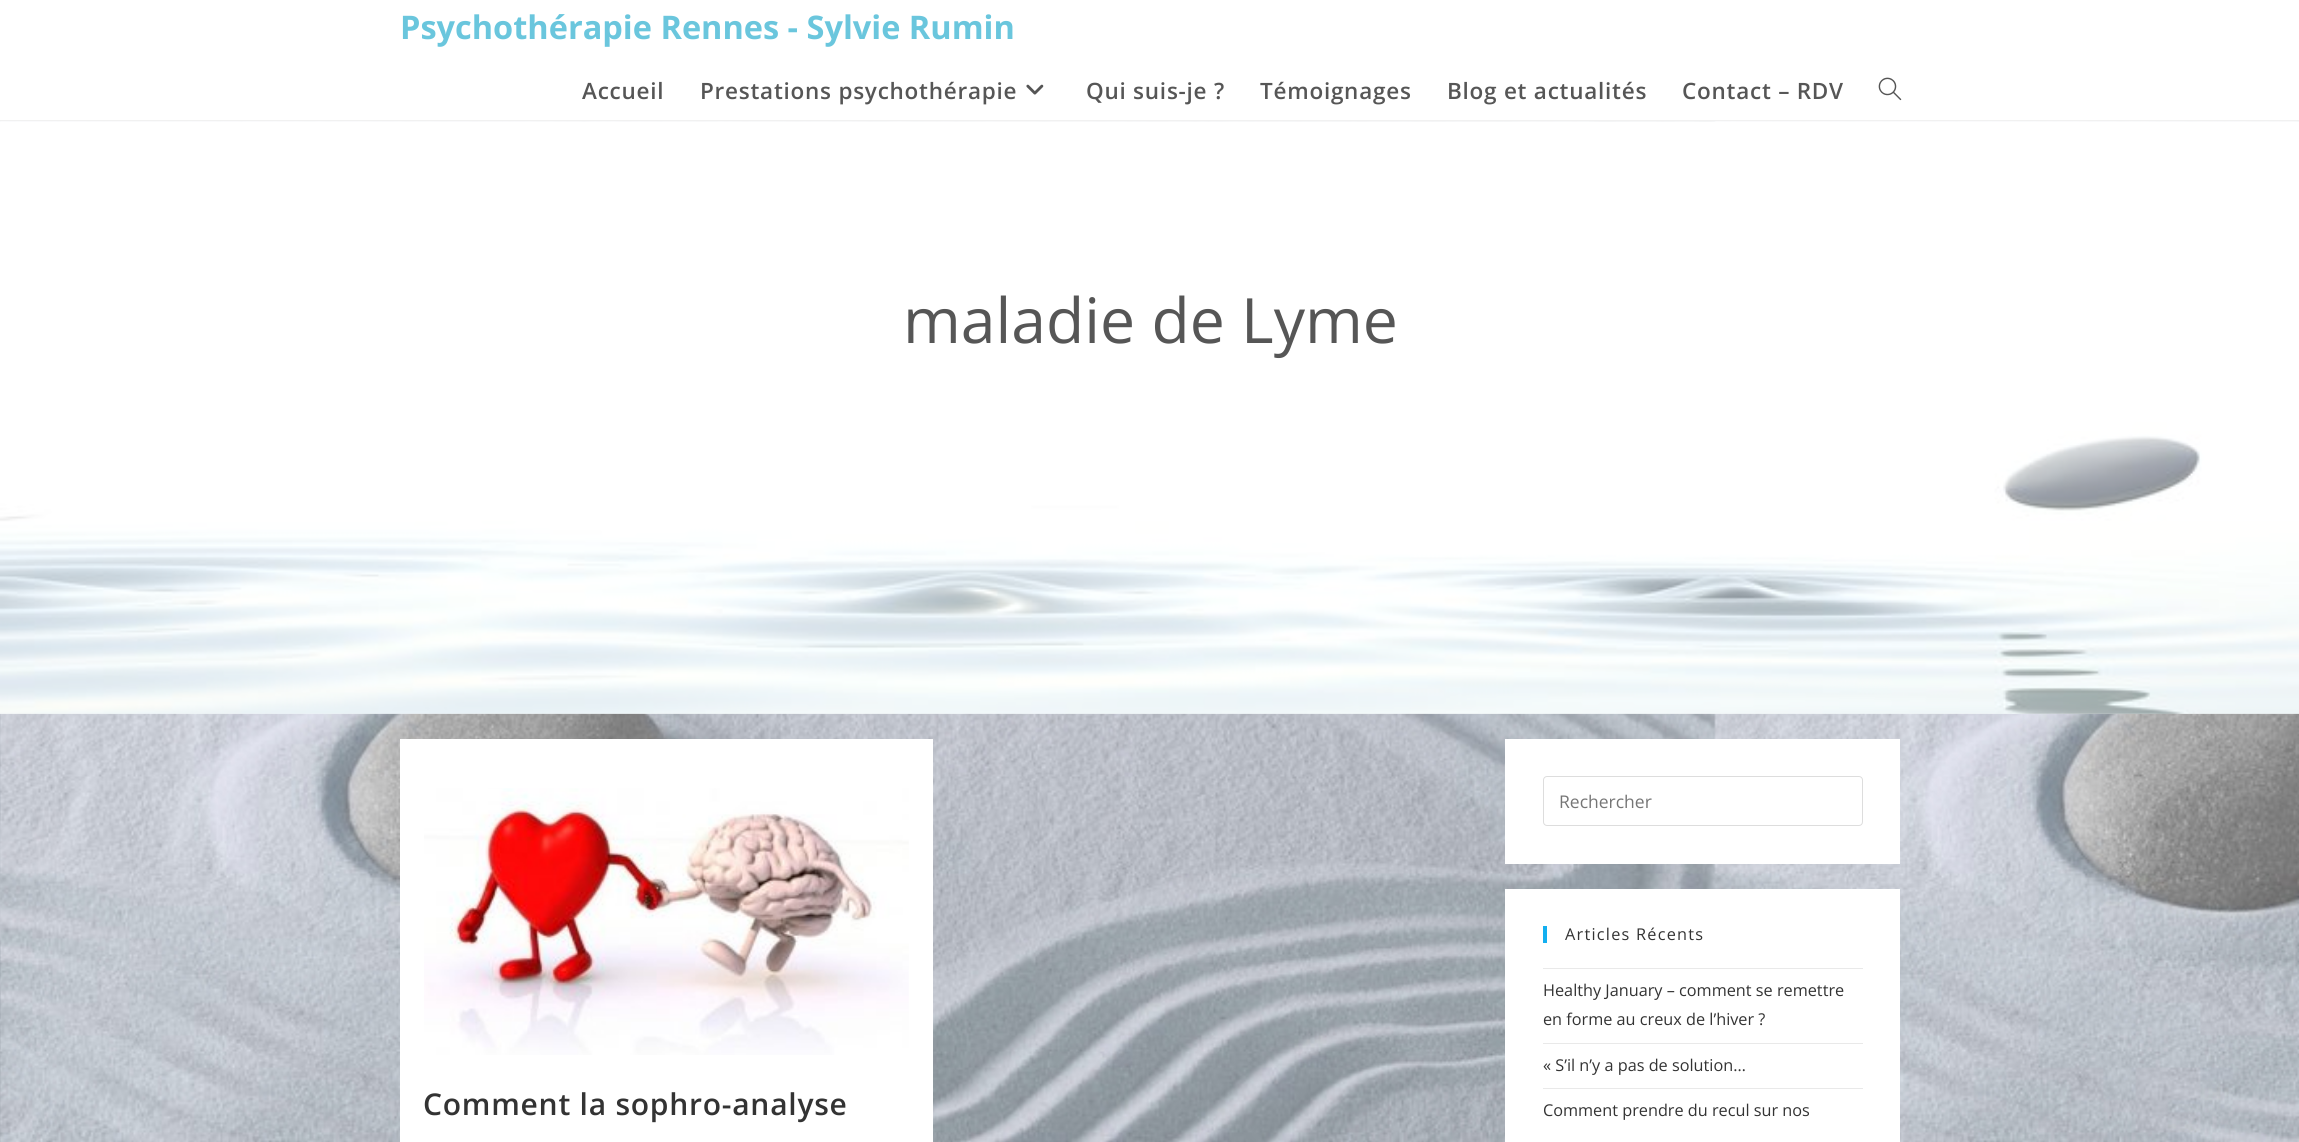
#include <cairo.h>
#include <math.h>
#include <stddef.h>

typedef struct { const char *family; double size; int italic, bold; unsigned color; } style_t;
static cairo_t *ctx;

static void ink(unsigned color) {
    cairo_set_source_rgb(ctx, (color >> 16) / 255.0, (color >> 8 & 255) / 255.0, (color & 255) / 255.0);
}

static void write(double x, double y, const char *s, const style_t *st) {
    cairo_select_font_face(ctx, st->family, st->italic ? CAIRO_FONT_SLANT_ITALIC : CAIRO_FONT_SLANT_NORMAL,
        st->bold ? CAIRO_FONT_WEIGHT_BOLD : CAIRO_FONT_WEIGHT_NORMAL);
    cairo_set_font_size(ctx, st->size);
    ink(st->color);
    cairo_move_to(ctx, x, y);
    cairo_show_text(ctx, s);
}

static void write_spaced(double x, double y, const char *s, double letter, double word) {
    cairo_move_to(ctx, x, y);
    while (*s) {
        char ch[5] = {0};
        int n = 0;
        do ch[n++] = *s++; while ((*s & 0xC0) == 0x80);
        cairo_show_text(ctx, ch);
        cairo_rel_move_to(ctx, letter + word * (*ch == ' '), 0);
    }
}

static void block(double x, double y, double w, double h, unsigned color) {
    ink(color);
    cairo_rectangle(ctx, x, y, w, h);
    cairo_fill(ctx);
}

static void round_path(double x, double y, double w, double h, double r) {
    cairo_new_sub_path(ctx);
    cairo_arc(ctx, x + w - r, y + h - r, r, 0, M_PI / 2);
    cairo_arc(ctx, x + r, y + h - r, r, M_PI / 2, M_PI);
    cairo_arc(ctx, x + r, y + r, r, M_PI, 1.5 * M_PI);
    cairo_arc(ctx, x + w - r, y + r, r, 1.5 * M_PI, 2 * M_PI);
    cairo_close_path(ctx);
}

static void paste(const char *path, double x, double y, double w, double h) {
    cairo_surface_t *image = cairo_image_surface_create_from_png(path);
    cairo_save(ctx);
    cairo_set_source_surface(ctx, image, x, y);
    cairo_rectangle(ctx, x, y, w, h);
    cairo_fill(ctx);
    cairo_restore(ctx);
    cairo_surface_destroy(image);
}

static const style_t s1 = {"Open Sans", 32.5, 0, 1, 0x6ac6dd};
static const style_t s2 = {"Open Sans", 62.5, 0, 0, 0x565656};
static const style_t s3 = {"Open Sans", 17.5, 0, 0, 0x757575};
static const style_t s4 = {"Open Sans", 16.25, 0, 0, 0x333333};

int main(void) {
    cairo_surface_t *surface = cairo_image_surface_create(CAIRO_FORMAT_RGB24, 2299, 1142);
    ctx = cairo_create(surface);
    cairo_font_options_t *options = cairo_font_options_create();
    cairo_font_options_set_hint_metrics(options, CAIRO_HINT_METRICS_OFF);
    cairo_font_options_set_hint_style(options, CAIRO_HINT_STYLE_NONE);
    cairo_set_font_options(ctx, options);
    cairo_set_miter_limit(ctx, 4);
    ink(0xffffff);
    cairo_paint(ctx);
    paste("pic1.png", 0, 121, 2299, 1021);
    block(0, 120, 2299, 1, 0xf1f1f1);
    write(400, 39, "Psychothérapie Rennes - Sylvie Rumin", &s1);
    cairo_select_font_face(ctx, "Open Sans SemiBold", CAIRO_FONT_SLANT_NORMAL, CAIRO_FONT_WEIGHT_NORMAL);
    cairo_set_font_size(ctx, 22.5);
    ink(0x565656);
    write_spaced(582, 99, "Accueil", 0.75, 0);
    write_spaced(700, 99, "Prestations psychothérapie", 0.75, 0);
    paste("pic2.png", 1026, 84, 18, 11);
    write_spaced(1086, 99, "Qui suis-je ?", 0.75, 0);
    write_spaced(1260, 99, "Témoignages", 0.75, 0);
    write_spaced(1447, 99, "Blog et actualités", 0.75, 0);
    write_spaced(1682, 99, "Contact – RDV", 0.75, 0);
    paste("pic3.png", 1878, 77, 24, 24);
    paste("pic4.png", 0, 121, 2299, 593);
    cairo_set_source_rgba(ctx, 1, 1, 1, 0.5);
    cairo_rectangle(ctx, 0, 121, 2299, 593);
    cairo_fill(ctx);
    write(903, 343, "maladie de Lyme", &s2);
    block(400, 739, 533, 403, 0xffffff);
    paste("pic5.png", 424, 788, 485, 267);
    cairo_select_font_face(ctx, "Open Sans SemiBold", CAIRO_FONT_SLANT_NORMAL, CAIRO_FONT_WEIGHT_NORMAL);
    cairo_set_font_size(ctx, 30);
    ink(0x333333);
    write_spaced(423, 1115, "Comment la sophro-analyse", 0.75, 0);
    block(1505, 739, 395, 125, 0xffffff);
    round_path(1543.5, 776.5, 319, 49, 3.5);
    ink(0xdddddd);
    cairo_set_line_width(ctx, 1);
    cairo_stroke(ctx);
    write(1559, 808, "Rechercher", &s3);
    block(1505, 889, 395, 253, 0xffffff);
    block(1543, 926, 4, 17, 0x13aff0);
    cairo_set_font_size(ctx, 16.25);
    ink(0x333333);
    write_spaced(1565, 940, "Articles Récents", 1.25, 0);
    block(1543, 968, 320, 1, 0xe9e9e9);
    block(1543, 1043, 320, 1, 0xe9e9e9);
    write(1543, 996, "Healthy January – comment se remettre", &s4);
    write(1543, 1025, "en forme au creux de l’hiver ?", &s4);
    block(1543, 1088, 320, 1, 0xe9e9e9);
    write(1543, 1071, "« S’il n’y a pas de solution…", &s4);
    write(1543, 1116, "Comment prendre du recul sur nos", &s4);
    cairo_surface_write_to_png(surface, "screenshot.png");
    cairo_font_options_destroy(options);
    cairo_destroy(ctx);
    cairo_surface_destroy(surface);
    return 0;
}
